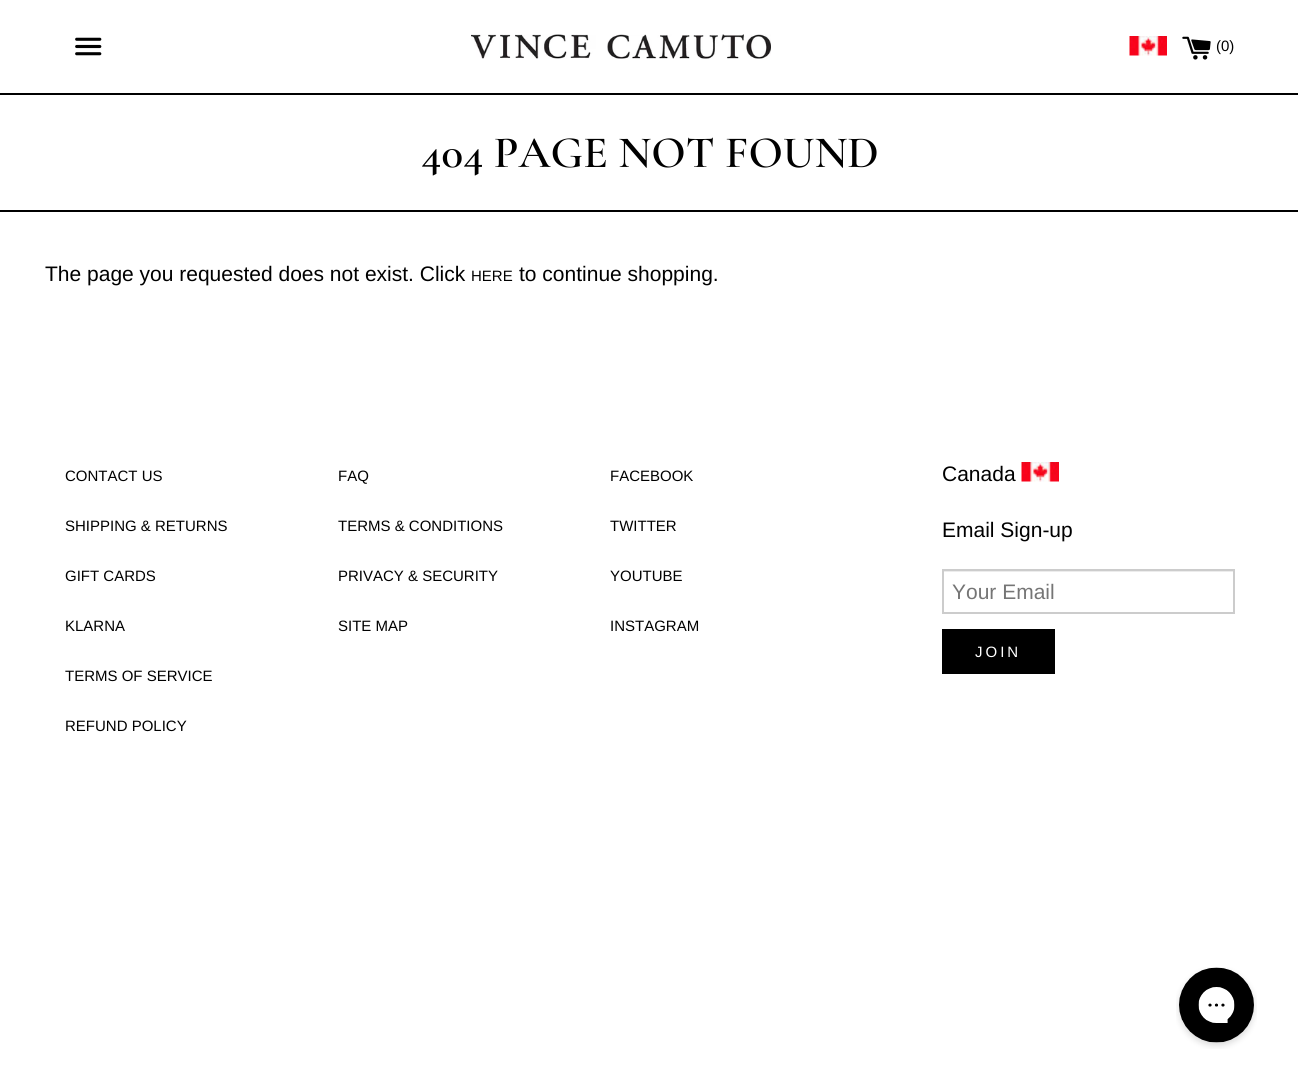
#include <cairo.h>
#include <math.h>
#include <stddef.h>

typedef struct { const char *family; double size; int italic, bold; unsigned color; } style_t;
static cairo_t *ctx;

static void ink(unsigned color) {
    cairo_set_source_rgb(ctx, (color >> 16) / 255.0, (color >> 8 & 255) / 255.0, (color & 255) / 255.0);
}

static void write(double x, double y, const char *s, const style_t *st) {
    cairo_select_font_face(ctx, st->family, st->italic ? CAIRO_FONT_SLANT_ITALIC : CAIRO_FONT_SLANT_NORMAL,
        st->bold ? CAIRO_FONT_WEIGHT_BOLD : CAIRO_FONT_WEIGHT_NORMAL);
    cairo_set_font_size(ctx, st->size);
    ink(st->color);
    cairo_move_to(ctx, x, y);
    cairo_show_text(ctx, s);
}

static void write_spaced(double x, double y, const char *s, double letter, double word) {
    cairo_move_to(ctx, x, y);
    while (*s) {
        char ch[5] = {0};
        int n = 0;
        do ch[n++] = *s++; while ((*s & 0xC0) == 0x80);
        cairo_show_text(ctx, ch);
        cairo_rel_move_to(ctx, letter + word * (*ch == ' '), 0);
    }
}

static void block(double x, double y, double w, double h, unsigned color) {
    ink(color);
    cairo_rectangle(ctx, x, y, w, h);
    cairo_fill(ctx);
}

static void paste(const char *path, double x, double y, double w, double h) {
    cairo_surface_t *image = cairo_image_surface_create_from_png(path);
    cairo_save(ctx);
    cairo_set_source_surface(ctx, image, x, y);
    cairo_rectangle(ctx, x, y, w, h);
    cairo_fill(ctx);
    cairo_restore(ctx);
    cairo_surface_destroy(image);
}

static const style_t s1 = {"Liberation Sans", 15, 0, 0, 0x000000};
static const style_t s2 = {"Cormorant Garamond SemiBold", 45, 0, 0, 0x000000};
static const style_t s3 = {"Liberation Sans", 21, 0, 0, 0x000000};
static const style_t s4 = {"Liberation Sans", 21, 0, 0, 0x757575};

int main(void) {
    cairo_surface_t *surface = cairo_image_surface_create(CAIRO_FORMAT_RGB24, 1298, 1082);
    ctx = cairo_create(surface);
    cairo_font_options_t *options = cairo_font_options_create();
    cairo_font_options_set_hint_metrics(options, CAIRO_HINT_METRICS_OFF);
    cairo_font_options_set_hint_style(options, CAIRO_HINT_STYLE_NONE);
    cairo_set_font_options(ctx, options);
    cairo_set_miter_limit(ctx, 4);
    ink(0xffffff);
    cairo_paint(ctx);
    paste("pic1.png", 75, 37, 27, 19);
    paste("pic2.png", 471, 34, 300, 25);
    paste("pic3.png", 1129, 36, 38, 20);
    paste("pic4.png", 1182, 36, 29, 24);
    write(1216, 51, "(0)", &s1);
    block(0, 93, 1298, 2, 0x000000);
    block(0, 210, 1298, 2, 0x000000);
    write(421, 167, "404 PAGE NOT FOUND", &s2);
    write(45, 281, "The page you requested does not exist. Click", &s3);
    write(471, 281, "HERE", &s1);
    write(519, 281, "to continue shopping.", &s3);
    write(65, 481, "CONTACT US", &s1);
    write(65, 531, "SHIPPING & RETURNS", &s1);
    write(65, 581, "GIFT CARDS", &s1);
    write(65, 631, "KLARNA", &s1);
    write(65, 681, "TERMS OF SERVICE", &s1);
    write(65, 731, "REFUND POLICY", &s1);
    write(338, 481, "FAQ", &s1);
    write(338, 531, "TERMS & CONDITIONS", &s1);
    write(338, 581, "PRIVACY & SECURITY", &s1);
    write(338, 631, "SITE MAP", &s1);
    write(610, 481, "FACEBOOK", &s1);
    write(610, 531, "TWITTER", &s1);
    write(610, 581, "YOUTUBE", &s1);
    write(610, 631, "INSTAGRAM", &s1);
    write(942, 481, "Canada", &s3);
    paste("pic5.png", 1021, 462, 38, 20);
    write(942, 537, "Email Sign-up", &s3);
    block(944, 571, 289, 1, 0xececec);
    cairo_rectangle(ctx, 943, 570, 291, 43);
    ink(0xcccccc);
    cairo_stroke(ctx);
    write(952, 599, "Your Email", &s4);
    block(942, 629, 113, 45, 0x000000);
    cairo_set_font_size(ctx, 15);
    ink(0xffffff);
    write_spaced(975, 657, "JOIN", 3, 0);
    paste("pic6.png", 1176, 967, 81, 82);
    cairo_surface_write_to_png(surface, "screenshot.png");
    cairo_font_options_destroy(options);
    cairo_destroy(ctx);
    cairo_surface_destroy(surface);
    return 0;
}
